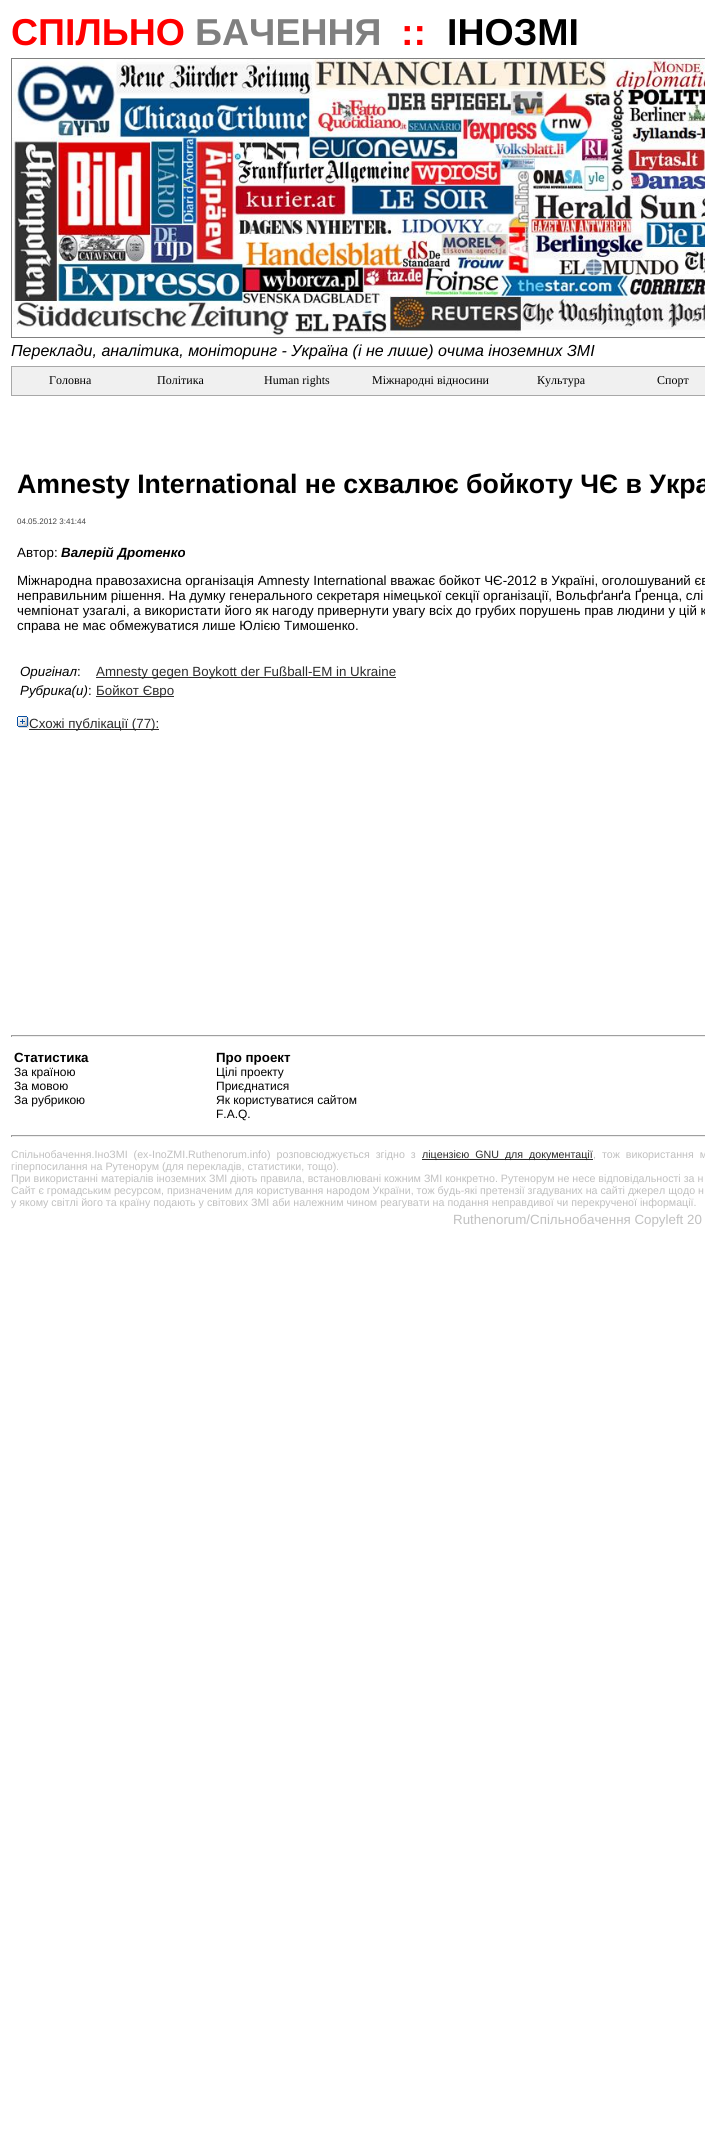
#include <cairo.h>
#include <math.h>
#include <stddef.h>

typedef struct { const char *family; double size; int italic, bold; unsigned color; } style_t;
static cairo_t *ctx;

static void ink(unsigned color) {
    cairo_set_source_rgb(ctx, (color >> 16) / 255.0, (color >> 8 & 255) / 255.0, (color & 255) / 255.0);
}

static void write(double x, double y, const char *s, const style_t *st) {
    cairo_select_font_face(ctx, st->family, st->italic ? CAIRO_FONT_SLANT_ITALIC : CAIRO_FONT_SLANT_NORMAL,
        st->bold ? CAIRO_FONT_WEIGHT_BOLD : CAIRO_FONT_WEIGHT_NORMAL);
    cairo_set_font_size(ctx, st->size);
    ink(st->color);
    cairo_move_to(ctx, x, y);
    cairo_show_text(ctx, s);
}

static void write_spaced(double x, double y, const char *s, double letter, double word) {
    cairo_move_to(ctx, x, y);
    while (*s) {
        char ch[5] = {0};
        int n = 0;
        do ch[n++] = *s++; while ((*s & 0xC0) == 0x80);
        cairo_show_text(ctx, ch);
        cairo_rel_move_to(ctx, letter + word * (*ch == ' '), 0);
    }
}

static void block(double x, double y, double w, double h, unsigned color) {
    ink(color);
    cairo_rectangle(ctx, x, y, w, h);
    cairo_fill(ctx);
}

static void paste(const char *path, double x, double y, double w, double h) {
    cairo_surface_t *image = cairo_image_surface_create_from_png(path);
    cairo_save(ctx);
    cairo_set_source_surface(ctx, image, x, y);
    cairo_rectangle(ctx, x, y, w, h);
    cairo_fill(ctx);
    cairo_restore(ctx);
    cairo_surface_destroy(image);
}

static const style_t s1 = {"Liberation Sans", 37.5, 0, 1, 0xff0000};
static const style_t s2 = {"Liberation Sans", 37.5, 0, 1, 0x808080};
static const style_t s3 = {"Liberation Sans", 37.5, 0, 1, 0x000000};
static const style_t s4 = {"Liberation Sans", 16, 1, 0, 0x000000};
static const style_t s5 = {"Liberation Serif", 12, 0, 0, 0x000000};
static const style_t s6 = {"Liberation Sans", 26.7, 0, 1, 0x000000};
static const style_t s7 = {"Liberation Sans", 8, 0, 0, 0x434343};
static const style_t s8 = {"Liberation Sans", 13.33, 0, 0, 0x000000};
static const style_t s9 = {"Liberation Sans", 13.33, 1, 1, 0x000000};
static const style_t s10 = {"Liberation Sans", 13.33, 1, 0, 0x000000};
static const style_t s11 = {"Liberation Sans", 13.33, 0, 0, 0x2c2c2c};
static const style_t s12 = {"Liberation Sans", 13.33, 0, 1, 0x000000};
static const style_t s13 = {"Liberation Sans", 12, 0, 0, 0x000000};
static const style_t s14 = {"Liberation Sans", 10.67, 0, 0, 0xc0c0c0};
static const style_t s15 = {"Liberation Sans", 13.33, 0, 0, 0xc0c0c0};

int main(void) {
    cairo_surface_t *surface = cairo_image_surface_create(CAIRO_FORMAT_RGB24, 705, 2139);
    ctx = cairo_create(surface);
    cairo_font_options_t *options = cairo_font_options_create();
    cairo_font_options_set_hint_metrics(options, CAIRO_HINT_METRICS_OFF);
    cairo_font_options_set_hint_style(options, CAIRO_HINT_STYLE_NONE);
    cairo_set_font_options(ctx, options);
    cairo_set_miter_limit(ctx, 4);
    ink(0xffffff);
    cairo_paint(ctx);
    write(11, 45, "СПІЛЬНО", &s1);
    write(195, 45, "БАЧЕННЯ", &s2);
    write(401, 45, "::", &s1);
    write(447, 45, "ІНОЗМІ", &s3);
    cairo_rectangle(ctx, 11.5, 58.5, 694, 279);
    ink(0x808080);
    cairo_set_line_width(ctx, 1);
    cairo_stroke(ctx);
    paste("pic1.png", 12, 59, 693, 278);
    write(11, 356, "Переклади, аналітика, моніторинг - Україна (і не лише) очима іноземних ЗМІ", &s4);
    ink(0xf0f0f0);
    cairo_rectangle(ctx, 11.5, 366.5, 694, 29);
    cairo_fill_preserve(ctx);
    ink(0xa8a8a8);
    cairo_stroke(ctx);
    write(49, 384, "Головна", &s5);
    write(157, 384, "Політика", &s5);
    write(264, 384, "Human rights", &s5);
    write(372, 384, "Міжнародні відносини", &s5);
    write(537, 384, "Культура", &s5);
    write(657, 384, "Спорт", &s5);
    write(17, 493, "Amnesty International не схвалює бойкоту ЧЄ в Укра", &s6);
    write(17, 524, "04.05.2012 3:41:44", &s7);
    write(17, 557, "Автор:", &s8);
    write(61, 557, "Валерій Дротенко", &s9);
    write(17, 585, "Міжнародна правозахисна організація Amnesty International вважає бойкот ЧЄ-2012 в Україні, оголошуваний єв", &s8);
    write(17, 600, "неправильним рішення. На думку генерального секретаря німецької секції організації, Вольфґанґа Ґренца, слі", &s8);
    write(17, 615, "чемпіонат узагалі, а використати його як нагоду привернути увагу всіх до грубих порушень прав людини у цій к", &s8);
    write(17, 630, "справа не має обмежуватися лише Юлією Тимошенко.", &s8);
    write(20, 676, "Оригінал", &s10);
    write(77, 676, ":", &s8);
    block(96, 677, 300, 1, 0x2c2c2c);
    write(96, 676, "Amnesty gegen Boykott der Fußball-EM in Ukraine", &s11);
    write(20, 695, "Рубрика(и)", &s10);
    write(88, 695, ":", &s8);
    block(96, 696, 78, 1, 0x2c2c2c);
    write(96, 695, "Бойкот Євро", &s11);
    paste("pic2.png", 17, 716, 12, 12);
    block(29, 729, 130, 1, 0x2c2c2c);
    write(29, 728, "Схожі публікації (77):", &s11);
    block(11, 1035, 694, 1, 0x9f9f9f);
    block(11, 1036, 694, 1, 0xeeeeee);
    block(11, 1035, 1, 2, 0x9f9f9f);
    write(14, 1062, "Статистика", &s12);
    write(14, 1076, "За країною", &s13);
    write(14, 1090, "За мовою", &s13);
    write(14, 1104, "За рубрикою", &s13);
    write(216, 1062, "Про проект", &s12);
    write(216, 1076, "Цілі проекту", &s13);
    write(216, 1090, "Приєднатися", &s13);
    write(216, 1104, "Як користуватися сайтом", &s13);
    write(216, 1118, "F.A.Q.", &s13);
    block(11, 1135, 694, 1, 0x9f9f9f);
    block(11, 1136, 694, 1, 0xeeeeee);
    block(11, 1135, 1, 2, 0x9f9f9f);
    cairo_set_font_size(ctx, 10.67);
    ink(0xc0c0c0);
    write_spaced(11, 1158, "Спільнобачення.ІноЗМІ (ex-InoZMI.Ruthenorum.info) розповсюджується згідно з", 0, 3);
    block(422, 1159, 171, 1, 0x2c2c2c);
    write_spaced(422, 1158, "ліцензією GNU для документації", 0, 3);
    ink(0xc0c0c0);
    write_spaced(593, 1158, ", тож використання м", 0, 3);
    write(11, 1170, "гіперпосилання на Рутенорум (для перекладів, статистики, тощо).", &s14);
    write(11, 1182, "При використанні матеріалів іноземних ЗМІ діють правила, встановлювані кожним ЗМІ конкретно. Рутенорум не несе відповідальності за н", &s14);
    write(11, 1194, "Сайт є громадським ресурсом, призначеним для користування народом України, тож будь-які претензії згадуваних на сайті джерел щодо н", &s14);
    write(11, 1206, "у якому світлі його та країну подають у світових ЗМІ аби належним чином реагувати на подання неправдивої чи перекрученої інформації.", &s14);
    write(453, 1224, "Ruthenorum/Спільнобачення Copyleft 20", &s15);
    cairo_surface_write_to_png(surface, "screenshot.png");
    cairo_font_options_destroy(options);
    cairo_destroy(ctx);
    cairo_surface_destroy(surface);
    return 0;
}
